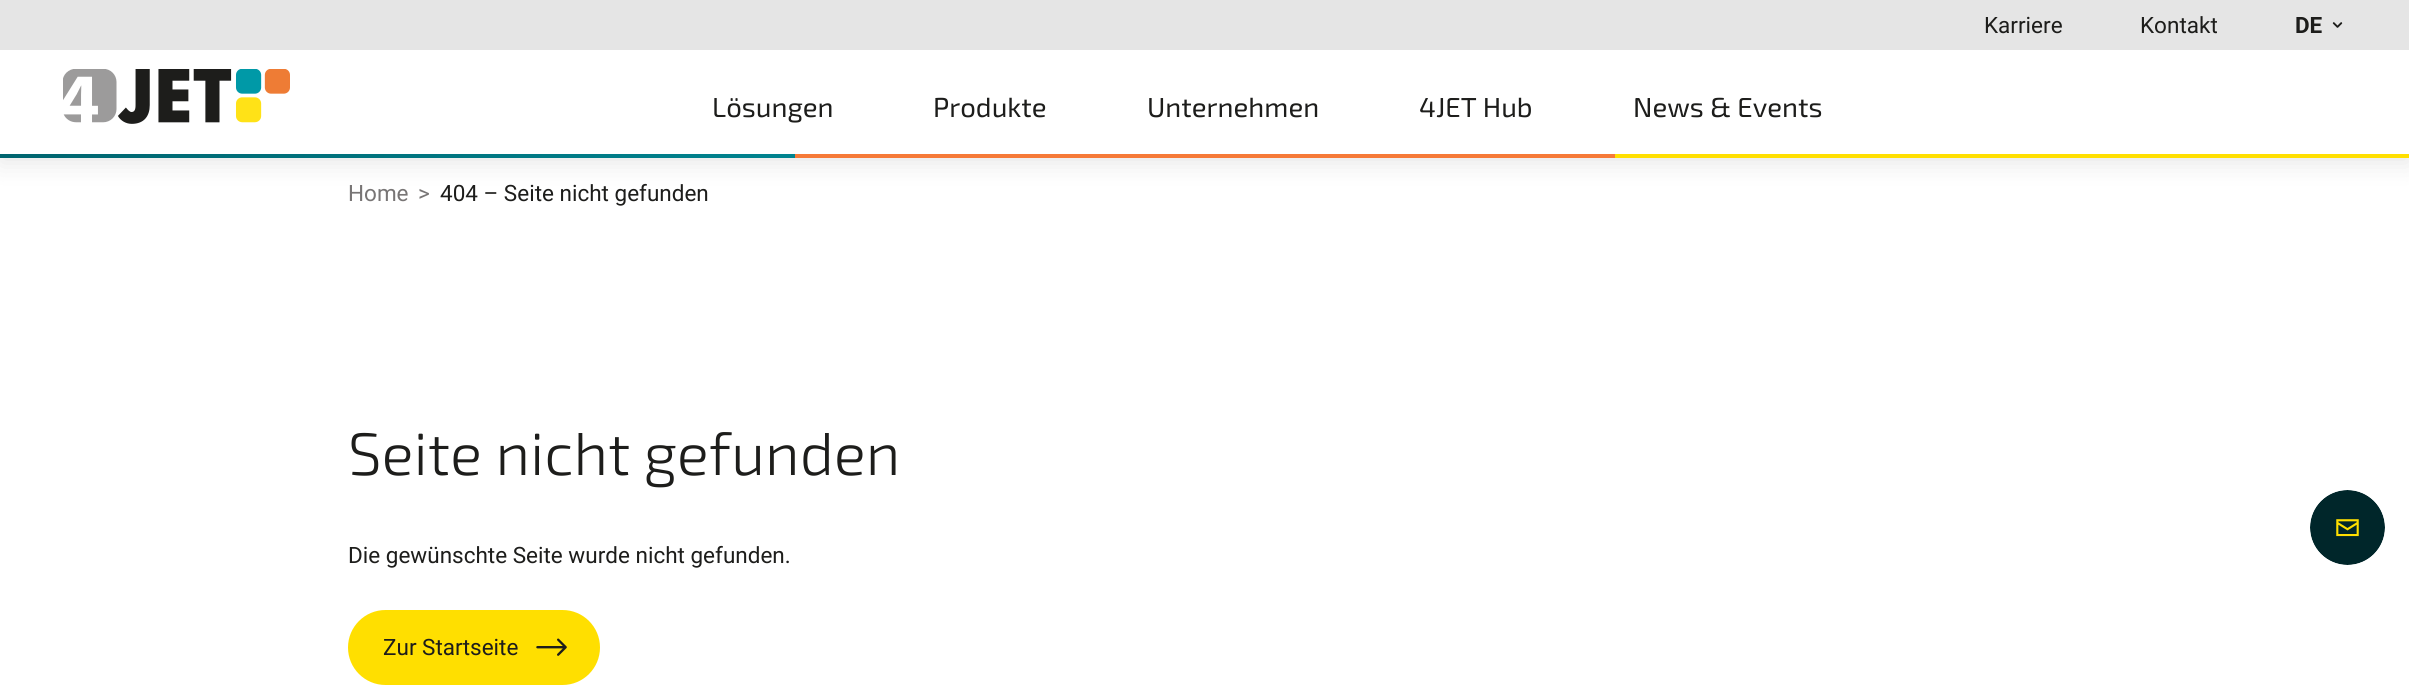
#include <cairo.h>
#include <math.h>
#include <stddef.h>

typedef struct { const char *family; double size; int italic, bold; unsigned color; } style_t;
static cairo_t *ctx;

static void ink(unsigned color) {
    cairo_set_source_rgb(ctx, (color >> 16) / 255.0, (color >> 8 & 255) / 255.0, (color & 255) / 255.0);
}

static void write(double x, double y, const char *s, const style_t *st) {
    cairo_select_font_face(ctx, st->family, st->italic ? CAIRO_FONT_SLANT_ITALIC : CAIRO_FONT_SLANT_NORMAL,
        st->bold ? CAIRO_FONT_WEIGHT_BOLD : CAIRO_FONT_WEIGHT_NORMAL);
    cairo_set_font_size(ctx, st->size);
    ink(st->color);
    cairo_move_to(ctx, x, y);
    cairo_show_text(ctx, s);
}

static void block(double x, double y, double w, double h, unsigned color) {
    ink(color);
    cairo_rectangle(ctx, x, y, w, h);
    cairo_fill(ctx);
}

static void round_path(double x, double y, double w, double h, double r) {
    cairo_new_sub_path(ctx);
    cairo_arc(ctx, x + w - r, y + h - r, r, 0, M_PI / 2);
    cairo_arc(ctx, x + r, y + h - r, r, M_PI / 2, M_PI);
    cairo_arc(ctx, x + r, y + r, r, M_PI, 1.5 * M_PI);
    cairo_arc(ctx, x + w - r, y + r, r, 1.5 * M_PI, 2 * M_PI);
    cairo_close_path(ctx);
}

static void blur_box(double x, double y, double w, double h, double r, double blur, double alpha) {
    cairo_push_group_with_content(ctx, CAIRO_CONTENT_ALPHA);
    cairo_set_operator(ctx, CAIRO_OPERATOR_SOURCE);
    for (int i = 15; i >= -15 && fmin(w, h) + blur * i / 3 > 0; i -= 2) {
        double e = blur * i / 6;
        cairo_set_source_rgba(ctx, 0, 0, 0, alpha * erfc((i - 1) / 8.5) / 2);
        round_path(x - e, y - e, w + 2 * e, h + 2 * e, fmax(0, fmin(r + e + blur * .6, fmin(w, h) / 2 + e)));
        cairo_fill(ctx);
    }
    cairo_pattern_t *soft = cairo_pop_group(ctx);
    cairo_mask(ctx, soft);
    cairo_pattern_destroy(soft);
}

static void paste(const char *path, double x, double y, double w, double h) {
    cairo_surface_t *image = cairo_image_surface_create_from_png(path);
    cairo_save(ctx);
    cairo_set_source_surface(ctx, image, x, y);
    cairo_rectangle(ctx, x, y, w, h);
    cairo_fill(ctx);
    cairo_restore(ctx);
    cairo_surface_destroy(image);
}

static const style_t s1 = {"Roboto", 22.5, 0, 0, 0x1d1d1b};
static const style_t s2 = {"Roboto", 22.5, 0, 1, 0x1d1d1b};
static const style_t s3 = {"Exo 2", 27.5, 0, 0, 0x1d1d1b};
static const style_t s4 = {"Roboto", 22.5, 0, 0, 0x787575};
static const style_t s5 = {"Exo 2 Light", 60, 0, 0, 0x1d1d1b};

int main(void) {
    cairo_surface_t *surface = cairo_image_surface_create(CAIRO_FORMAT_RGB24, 2409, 696);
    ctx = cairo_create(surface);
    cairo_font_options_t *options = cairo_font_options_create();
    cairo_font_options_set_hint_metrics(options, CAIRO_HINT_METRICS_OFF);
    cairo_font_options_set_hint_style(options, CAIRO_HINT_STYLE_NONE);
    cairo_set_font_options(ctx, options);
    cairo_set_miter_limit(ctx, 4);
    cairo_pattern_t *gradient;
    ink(0xffffff);
    cairo_paint(ctx);
    ink(0x000000);
    blur_box(0, 5, 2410, 158, 0, 12.5, 0.1);
    block(0, 50, 2409, 104, 0xffffff);
    block(0, 0, 2409, 50, 0xe5e5e5);
    write(1984, 33, "Karriere", &s1);
    write(2140, 33, "Kontakt", &s1);
    write(2295, 33, "DE", &s2);
    paste("pic1.png", 2332, 22, 11, 6);
    paste("pic2.png", 63, 69, 227, 55);
    write(712, 117, "Lösungen", &s3);
    write(933, 117, "Produkte", &s3);
    write(1147, 117, "Unternehmen", &s3);
    write(1419, 117, "4JET Hub", &s3);
    write(1633, 117, "News & Events", &s3);
    gradient = cairo_pattern_create_linear(0, 156, 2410, 156);
    cairo_pattern_add_color_stop_rgba(gradient, 0, 0, 0.396, 0.435, 1);
    cairo_pattern_add_color_stop_rgba(gradient, 0.33, 0, 0.514, 0.561, 1);
    cairo_pattern_add_color_stop_rgba(gradient, 0.33, 0.965, 0.478, 0.22, 1);
    cairo_pattern_add_color_stop_rgba(gradient, 0.67, 0.965, 0.478, 0.22, 1);
    cairo_pattern_add_color_stop_rgba(gradient, 0.67, 1, 0.875, 0, 1);
    cairo_set_source(ctx, gradient);
    cairo_pattern_destroy(gradient);
    cairo_rectangle(ctx, 0, 154, 2409, 4);
    cairo_fill(ctx);
    write(348, 201, "Home", &s4);
    write(418, 201, ">", &s4);
    write(440, 201, "404 – Seite nicht gefunden", &s1);
    write(348, 475, "Seite nicht gefunden", &s5);
    write(348, 563, "Die gewünschte Seite wurde nicht gefunden.", &s1);
    ink(0xffdf00);
    round_path(348, 610, 252, 75, 37.5);
    cairo_fill(ctx);
    write(383, 655, "Zur Startseite", &s1);
    paste("pic3.png", 536, 638, 31, 18);
    ink(0x00262a);
    cairo_arc(ctx, 2347.5, 527.5, 37.5, 0, 2 * M_PI);
    cairo_fill(ctx);
    paste("pic4.png", 2336, 519, 23, 18);
    cairo_arc(ctx, 2347.5, 527.5, 38, 0, 2 * M_PI);
    ink(0xffffff);
    cairo_set_line_width(ctx, 1);
    cairo_stroke(ctx);
    cairo_surface_write_to_png(surface, "screenshot.png");
    cairo_font_options_destroy(options);
    cairo_destroy(ctx);
    cairo_surface_destroy(surface);
    return 0;
}
